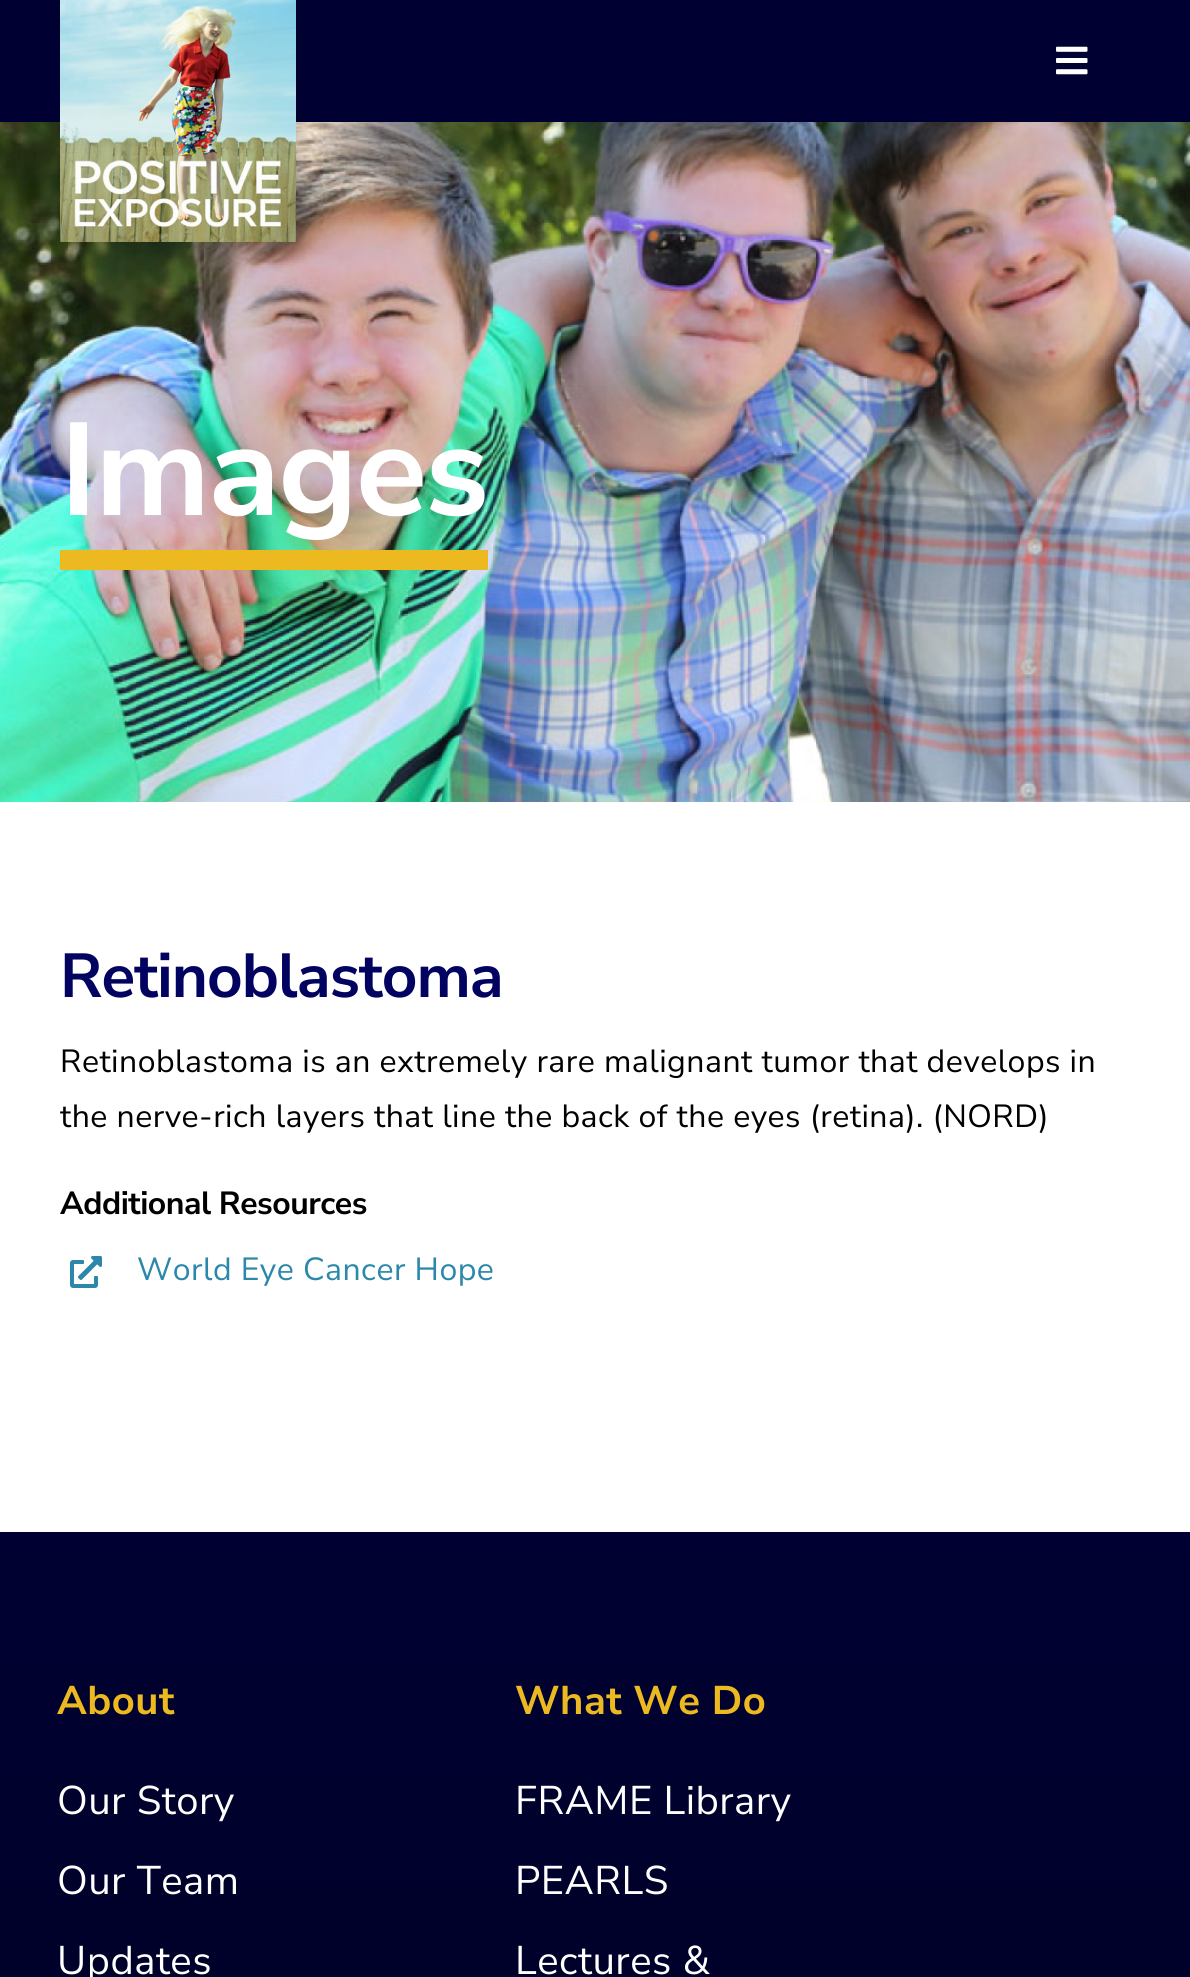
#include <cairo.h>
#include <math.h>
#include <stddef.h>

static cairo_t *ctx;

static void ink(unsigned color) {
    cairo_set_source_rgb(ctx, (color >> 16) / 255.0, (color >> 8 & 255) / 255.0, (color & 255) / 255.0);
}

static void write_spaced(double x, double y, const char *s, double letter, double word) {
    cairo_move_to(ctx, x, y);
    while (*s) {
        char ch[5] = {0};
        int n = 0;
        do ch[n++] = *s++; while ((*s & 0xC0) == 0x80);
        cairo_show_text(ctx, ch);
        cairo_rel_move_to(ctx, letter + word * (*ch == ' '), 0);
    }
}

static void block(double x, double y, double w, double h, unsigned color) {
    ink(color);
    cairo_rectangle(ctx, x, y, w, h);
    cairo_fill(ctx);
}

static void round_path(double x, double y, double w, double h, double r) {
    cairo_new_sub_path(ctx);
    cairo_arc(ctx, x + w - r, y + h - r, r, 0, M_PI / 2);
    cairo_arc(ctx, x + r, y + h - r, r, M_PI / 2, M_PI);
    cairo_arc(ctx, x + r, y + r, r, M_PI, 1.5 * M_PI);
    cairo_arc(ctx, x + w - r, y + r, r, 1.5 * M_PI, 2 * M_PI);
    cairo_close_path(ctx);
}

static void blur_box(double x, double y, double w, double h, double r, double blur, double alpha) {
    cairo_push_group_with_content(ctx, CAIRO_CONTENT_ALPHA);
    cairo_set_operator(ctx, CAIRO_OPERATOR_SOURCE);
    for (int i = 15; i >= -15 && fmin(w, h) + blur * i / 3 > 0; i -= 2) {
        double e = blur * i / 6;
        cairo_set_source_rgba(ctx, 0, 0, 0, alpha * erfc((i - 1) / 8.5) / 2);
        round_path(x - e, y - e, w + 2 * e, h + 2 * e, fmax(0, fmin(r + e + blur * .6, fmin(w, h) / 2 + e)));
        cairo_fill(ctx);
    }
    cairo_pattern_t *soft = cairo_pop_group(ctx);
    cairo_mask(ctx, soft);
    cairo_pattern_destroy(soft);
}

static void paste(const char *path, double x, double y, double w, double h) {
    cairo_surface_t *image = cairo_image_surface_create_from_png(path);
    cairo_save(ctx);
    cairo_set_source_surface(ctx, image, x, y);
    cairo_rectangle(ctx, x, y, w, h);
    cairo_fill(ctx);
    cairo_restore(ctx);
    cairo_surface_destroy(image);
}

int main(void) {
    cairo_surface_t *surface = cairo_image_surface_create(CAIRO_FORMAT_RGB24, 1190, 1977);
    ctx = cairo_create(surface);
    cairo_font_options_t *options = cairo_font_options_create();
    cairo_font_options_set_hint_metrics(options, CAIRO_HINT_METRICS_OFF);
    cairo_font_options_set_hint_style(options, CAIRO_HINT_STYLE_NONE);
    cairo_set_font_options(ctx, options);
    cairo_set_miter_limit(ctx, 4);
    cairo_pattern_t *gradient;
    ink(0xffffff);
    cairo_paint(ctx);
    block(0, 0, 1190, 122, 0x000132);
    paste("pic3.png", 0, 122, 1190, 680);
    ink(0x000000);
    blur_box(64, 4, 236, 242, 0, 6, 0.11);
    paste("pic1.png", 60, 0, 236, 242);
    paste("pic2.png", 1056, 46, 32, 29);
    block(60, 550, 428, 20, 0xecb920);
    cairo_select_font_face(ctx, "Nunito Sans", CAIRO_FONT_SLANT_NORMAL, CAIRO_FONT_WEIGHT_BOLD);
    cairo_set_font_size(ctx, 131.5);
    ink(0xffffff);
    write_spaced(60, 515, "Images", -2, 0);
    cairo_set_font_size(ctx, 62);
    ink(0x020360);
    write_spaced(60, 997, "Retinoblastoma", -1, 0);
    cairo_select_font_face(ctx, "Nunito Sans", CAIRO_FONT_SLANT_NORMAL, CAIRO_FONT_WEIGHT_NORMAL);
    cairo_set_font_size(ctx, 32);
    ink(0x000000);
    write_spaced(60, 1072, "Retinoblastoma is an extremely rare malignant tumor that develops in", 0.48, 0);
    write_spaced(60, 1127, "the nerve-rich layers that line the back of the eyes (retina). (NORD)", 0.48, 0);
    cairo_select_font_face(ctx, "Nunito Sans", CAIRO_FONT_SLANT_NORMAL, CAIRO_FONT_WEIGHT_BOLD);
    write_spaced(60, 1214, "Additional Resources", -0.5, 0);
    paste("pic4.png", 70, 1256, 32, 32);
    cairo_select_font_face(ctx, "Nunito Sans", CAIRO_FONT_SLANT_NORMAL, CAIRO_FONT_WEIGHT_NORMAL);
    ink(0x2b88aa);
    write_spaced(137, 1280, "World Eye Cancer Hope", 0.48, 0);
    gradient = cairo_pattern_create_linear(595, 1532, 595, 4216);
    cairo_pattern_add_color_stop_rgba(gradient, 0, 0, 0.004, 0.196, 1);
    cairo_pattern_add_color_stop_rgba(gradient, 1, 0, 0, 0, 1);
    cairo_set_source(ctx, gradient);
    cairo_pattern_destroy(gradient);
    cairo_rectangle(ctx, 0, 1532, 1190, 445);
    cairo_fill(ctx);
    cairo_select_font_face(ctx, "Nunito Sans", CAIRO_FONT_SLANT_NORMAL, CAIRO_FONT_WEIGHT_BOLD);
    cairo_set_font_size(ctx, 40);
    ink(0xecb920);
    write_spaced(57, 1714, "About", 0.48, 0);
    cairo_select_font_face(ctx, "Nunito Sans", CAIRO_FONT_SLANT_NORMAL, CAIRO_FONT_WEIGHT_NORMAL);
    ink(0xffffff);
    write_spaced(57, 1814, "Our Story", 0.48, 0);
    write_spaced(57, 1894, "Our Team", 0.48, 0);
    write_spaced(57, 1974, "Updates", 0.48, 0);
    cairo_select_font_face(ctx, "Nunito Sans", CAIRO_FONT_SLANT_NORMAL, CAIRO_FONT_WEIGHT_BOLD);
    ink(0xecb920);
    write_spaced(515, 1714, "What We Do", 0.48, 0);
    cairo_select_font_face(ctx, "Nunito Sans", CAIRO_FONT_SLANT_NORMAL, CAIRO_FONT_WEIGHT_NORMAL);
    ink(0xffffff);
    write_spaced(515, 1814, "FRAME Library", 0.48, 0);
    write_spaced(515, 1894, "PEARLS", 0.48, 0);
    write_spaced(515, 1974, "Lectures &", 0.48, 0);
    cairo_surface_write_to_png(surface, "screenshot.png");
    cairo_font_options_destroy(options);
    cairo_destroy(ctx);
    cairo_surface_destroy(surface);
    return 0;
}
